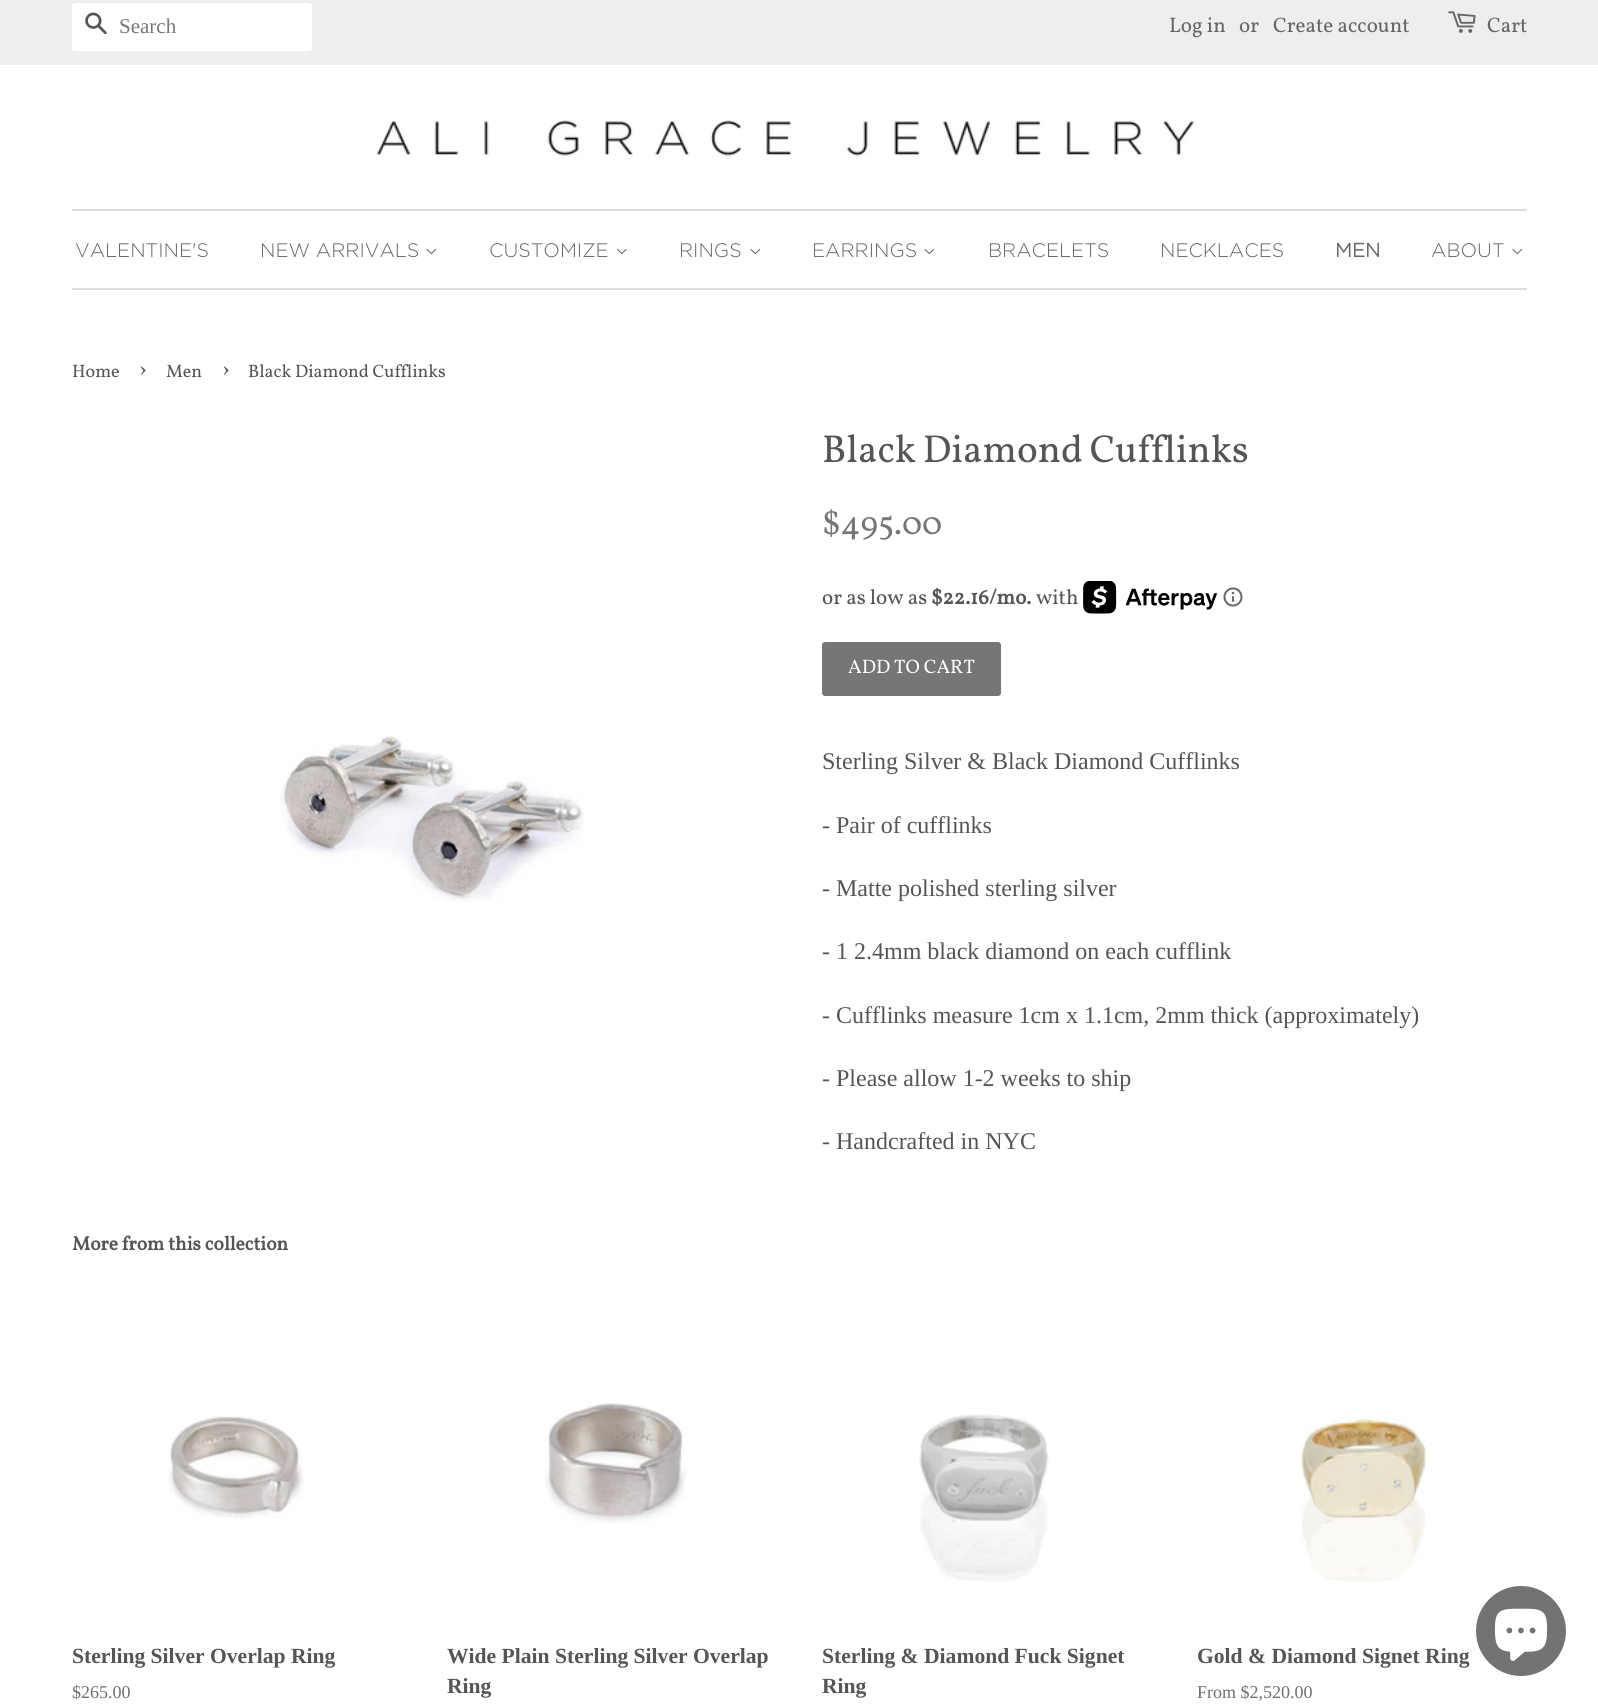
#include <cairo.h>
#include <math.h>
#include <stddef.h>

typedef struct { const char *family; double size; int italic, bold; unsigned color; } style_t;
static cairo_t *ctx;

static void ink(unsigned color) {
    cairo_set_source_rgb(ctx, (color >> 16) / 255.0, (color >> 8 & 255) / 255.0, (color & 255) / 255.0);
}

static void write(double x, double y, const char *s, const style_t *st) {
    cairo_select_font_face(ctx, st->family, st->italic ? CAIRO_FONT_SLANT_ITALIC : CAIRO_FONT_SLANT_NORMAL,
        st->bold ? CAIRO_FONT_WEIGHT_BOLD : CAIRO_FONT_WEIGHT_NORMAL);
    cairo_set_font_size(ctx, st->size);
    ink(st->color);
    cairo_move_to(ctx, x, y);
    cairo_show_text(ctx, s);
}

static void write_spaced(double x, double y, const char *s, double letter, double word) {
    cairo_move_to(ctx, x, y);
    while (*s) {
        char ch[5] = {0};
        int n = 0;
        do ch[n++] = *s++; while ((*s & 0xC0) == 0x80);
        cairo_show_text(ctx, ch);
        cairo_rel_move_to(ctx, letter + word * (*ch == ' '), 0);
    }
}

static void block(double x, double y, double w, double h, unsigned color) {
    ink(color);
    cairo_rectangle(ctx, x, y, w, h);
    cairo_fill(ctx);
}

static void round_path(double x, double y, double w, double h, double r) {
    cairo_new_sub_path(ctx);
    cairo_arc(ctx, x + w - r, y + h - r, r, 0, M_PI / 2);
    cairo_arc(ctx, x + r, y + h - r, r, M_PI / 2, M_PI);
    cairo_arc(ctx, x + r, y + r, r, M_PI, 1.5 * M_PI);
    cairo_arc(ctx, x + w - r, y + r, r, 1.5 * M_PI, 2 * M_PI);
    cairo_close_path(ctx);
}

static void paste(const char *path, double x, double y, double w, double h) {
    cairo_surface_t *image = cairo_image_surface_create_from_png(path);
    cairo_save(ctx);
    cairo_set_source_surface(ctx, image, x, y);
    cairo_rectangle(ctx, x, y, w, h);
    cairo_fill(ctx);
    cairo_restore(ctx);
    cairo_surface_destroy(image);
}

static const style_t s1 = {"Liberation Serif", 21, 0, 0, 0x767676};
static const style_t s2 = {"Vollkorn", 21, 0, 0, 0x666666};
static const style_t s3 = {"Gotham Light", 19.5, 0, 0, 0x666666};
static const style_t s4 = {"Gotham", 19.5, 0, 1, 0x666666};
static const style_t s5 = {"Vollkorn", 18, 0, 0, 0x555555};
static const style_t s6 = {"Vollkorn", 25, 0, 0, 0x555555};
static const style_t s7 = {"Vollkorn", 33.5, 0, 0, 0x767676};
static const style_t s8 = {"Vollkorn", 21, 0, 0, 0x555555};
static const style_t s9 = {"Vollkorn", 21, 0, 1, 0x555555};
static const style_t s10 = {"Vollkorn", 19.5, 0, 0, 0xffffff};
static const style_t s11 = {"Liberation Serif", 24, 0, 0, 0x555555};
static const style_t s12 = {"Vollkorn", 19.5, 0, 1, 0x555555};
static const style_t s13 = {"Liberation Serif", 21.6, 0, 1, 0x555555};
static const style_t s14 = {"Liberation Serif", 18, 0, 0, 0x6e6e6e};

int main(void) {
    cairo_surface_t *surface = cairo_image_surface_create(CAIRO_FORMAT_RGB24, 1598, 1706);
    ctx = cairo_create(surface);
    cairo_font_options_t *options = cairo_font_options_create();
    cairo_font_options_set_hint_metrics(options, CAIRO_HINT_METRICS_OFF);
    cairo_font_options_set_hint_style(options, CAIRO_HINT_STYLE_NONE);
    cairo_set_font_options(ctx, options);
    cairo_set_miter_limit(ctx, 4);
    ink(0xffffff);
    cairo_paint(ctx);
    block(0, 0, 1598, 65, 0xeeeeee);
    ink(0xffffff);
    round_path(72, 3, 240, 48, 3);
    cairo_fill(ctx);
    paste("pic1.png", 85, 12, 22, 23);
    write(119, 33, "Search", &s1);
    write(1169, 32, "Log in", &s2);
    write(1239, 32, "or", &s2);
    write(1273, 32, "Create account", &s2);
    paste("pic2.png", 1448, 11, 28, 22);
    write(1487, 32, "Cart", &s2);
    paste("pic3.png", 376, 119, 819, 40);
    block(72, 209, 1455, 2, 0xdddddd);
    block(72, 288, 1455, 2, 0xdddddd);
    write(75, 257, "VALENTINE'S", &s3);
    write(260, 257, "NEW ARRIVALS", &s3);
    paste("pic4.png", 426, 248, 11, 7);
    write(489, 257, "CUSTOMIZE", &s3);
    paste("pic5.png", 617, 248, 10, 7);
    write(679, 257, "RINGS", &s3);
    paste("pic4.png", 750, 248, 11, 7);
    write(812, 257, "EARRINGS", &s3);
    paste("pic4.png", 924, 248, 11, 7);
    write(988, 257, "BRACELETS", &s3);
    write(1160, 257, "NECKLACES", &s3);
    write(1335, 257, "MEN", &s4);
    write(1431, 257, "ABOUT", &s3);
    paste("pic4.png", 1512, 248, 11, 7);
    write(72, 377, "Home", &s5);
    write(138, 377, "›", &s6);
    write(166, 377, "Men", &s5);
    write(221, 377, "›", &s6);
    write(248, 377, "Black Diamond Cufflinks", &s5);
    paste("pic6.png", 280, 736, 304, 166);
    cairo_set_font_size(ctx, 39);
    write_spaced(822, 462, "Black Diamond Cufflinks", 0, -1);
    write(822, 534, "$495.00", &s7);
    write(822, 604, "or as low as", &s8);
    write(931, 604, "$22.16/mo.", &s9);
    write(1036, 604, "with", &s8);
    paste("pic7.png", 1083, 581, 134, 33);
    paste("pic8.png", 1223, 587, 20, 20);
    ink(0x767676);
    round_path(822, 642, 179, 54, 3);
    cairo_fill(ctx);
    write(848, 673, "ADD TO CART", &s10);
    write(822, 769, "Sterling Silver & Black Diamond Cufflinks", &s11);
    write(822, 833, "- Pair of cufflinks", &s11);
    write(822, 896, "- Matte polished sterling silver", &s11);
    write(822, 959, "- 1 2.4mm black diamond on each cufflink", &s11);
    write(822, 1023, "- Cufflinks measure 1cm x 1.1cm, 2mm thick (approximately)", &s11);
    write(822, 1086, "- Please allow 1-2 weeks to ship", &s11);
    write(822, 1149, "- Handcrafted in NYC", &s11);
    write(72, 1250, "More from this collection", &s12);
    paste("pic9.png", 168, 1416, 137, 103);
    write(72, 1663, "Sterling Silver Overlap Ring", &s13);
    write(72, 1698, "$265.00", &s14);
    paste("pic10.png", 544, 1403, 143, 121);
    write(447, 1663, "Wide Plain Sterling Silver Overlap", &s13);
    write(447, 1693, "Ring", &s13);
    paste("pic11.png", 919, 1414, 130, 168);
    write(822, 1663, "Sterling & Diamond Fuck Signet", &s13);
    write(822, 1693, "Ring", &s13);
    paste("pic12.png", 1300, 1418, 126, 165);
    write(1197, 1663, "Gold & Diamond Signet Ring", &s13);
    write(1197, 1698, "From $2,520.00", &s14);
    ink(0x717374);
    cairo_new_path(ctx);
    cairo_arc(ctx, 1521, 1631, 45, 0, 2 * M_PI);
    cairo_fill(ctx);
    paste("pic13.png", 1494, 1608, 54, 53);
    cairo_surface_write_to_png(surface, "screenshot.png");
    cairo_font_options_destroy(options);
    cairo_destroy(ctx);
    cairo_surface_destroy(surface);
    return 0;
}
